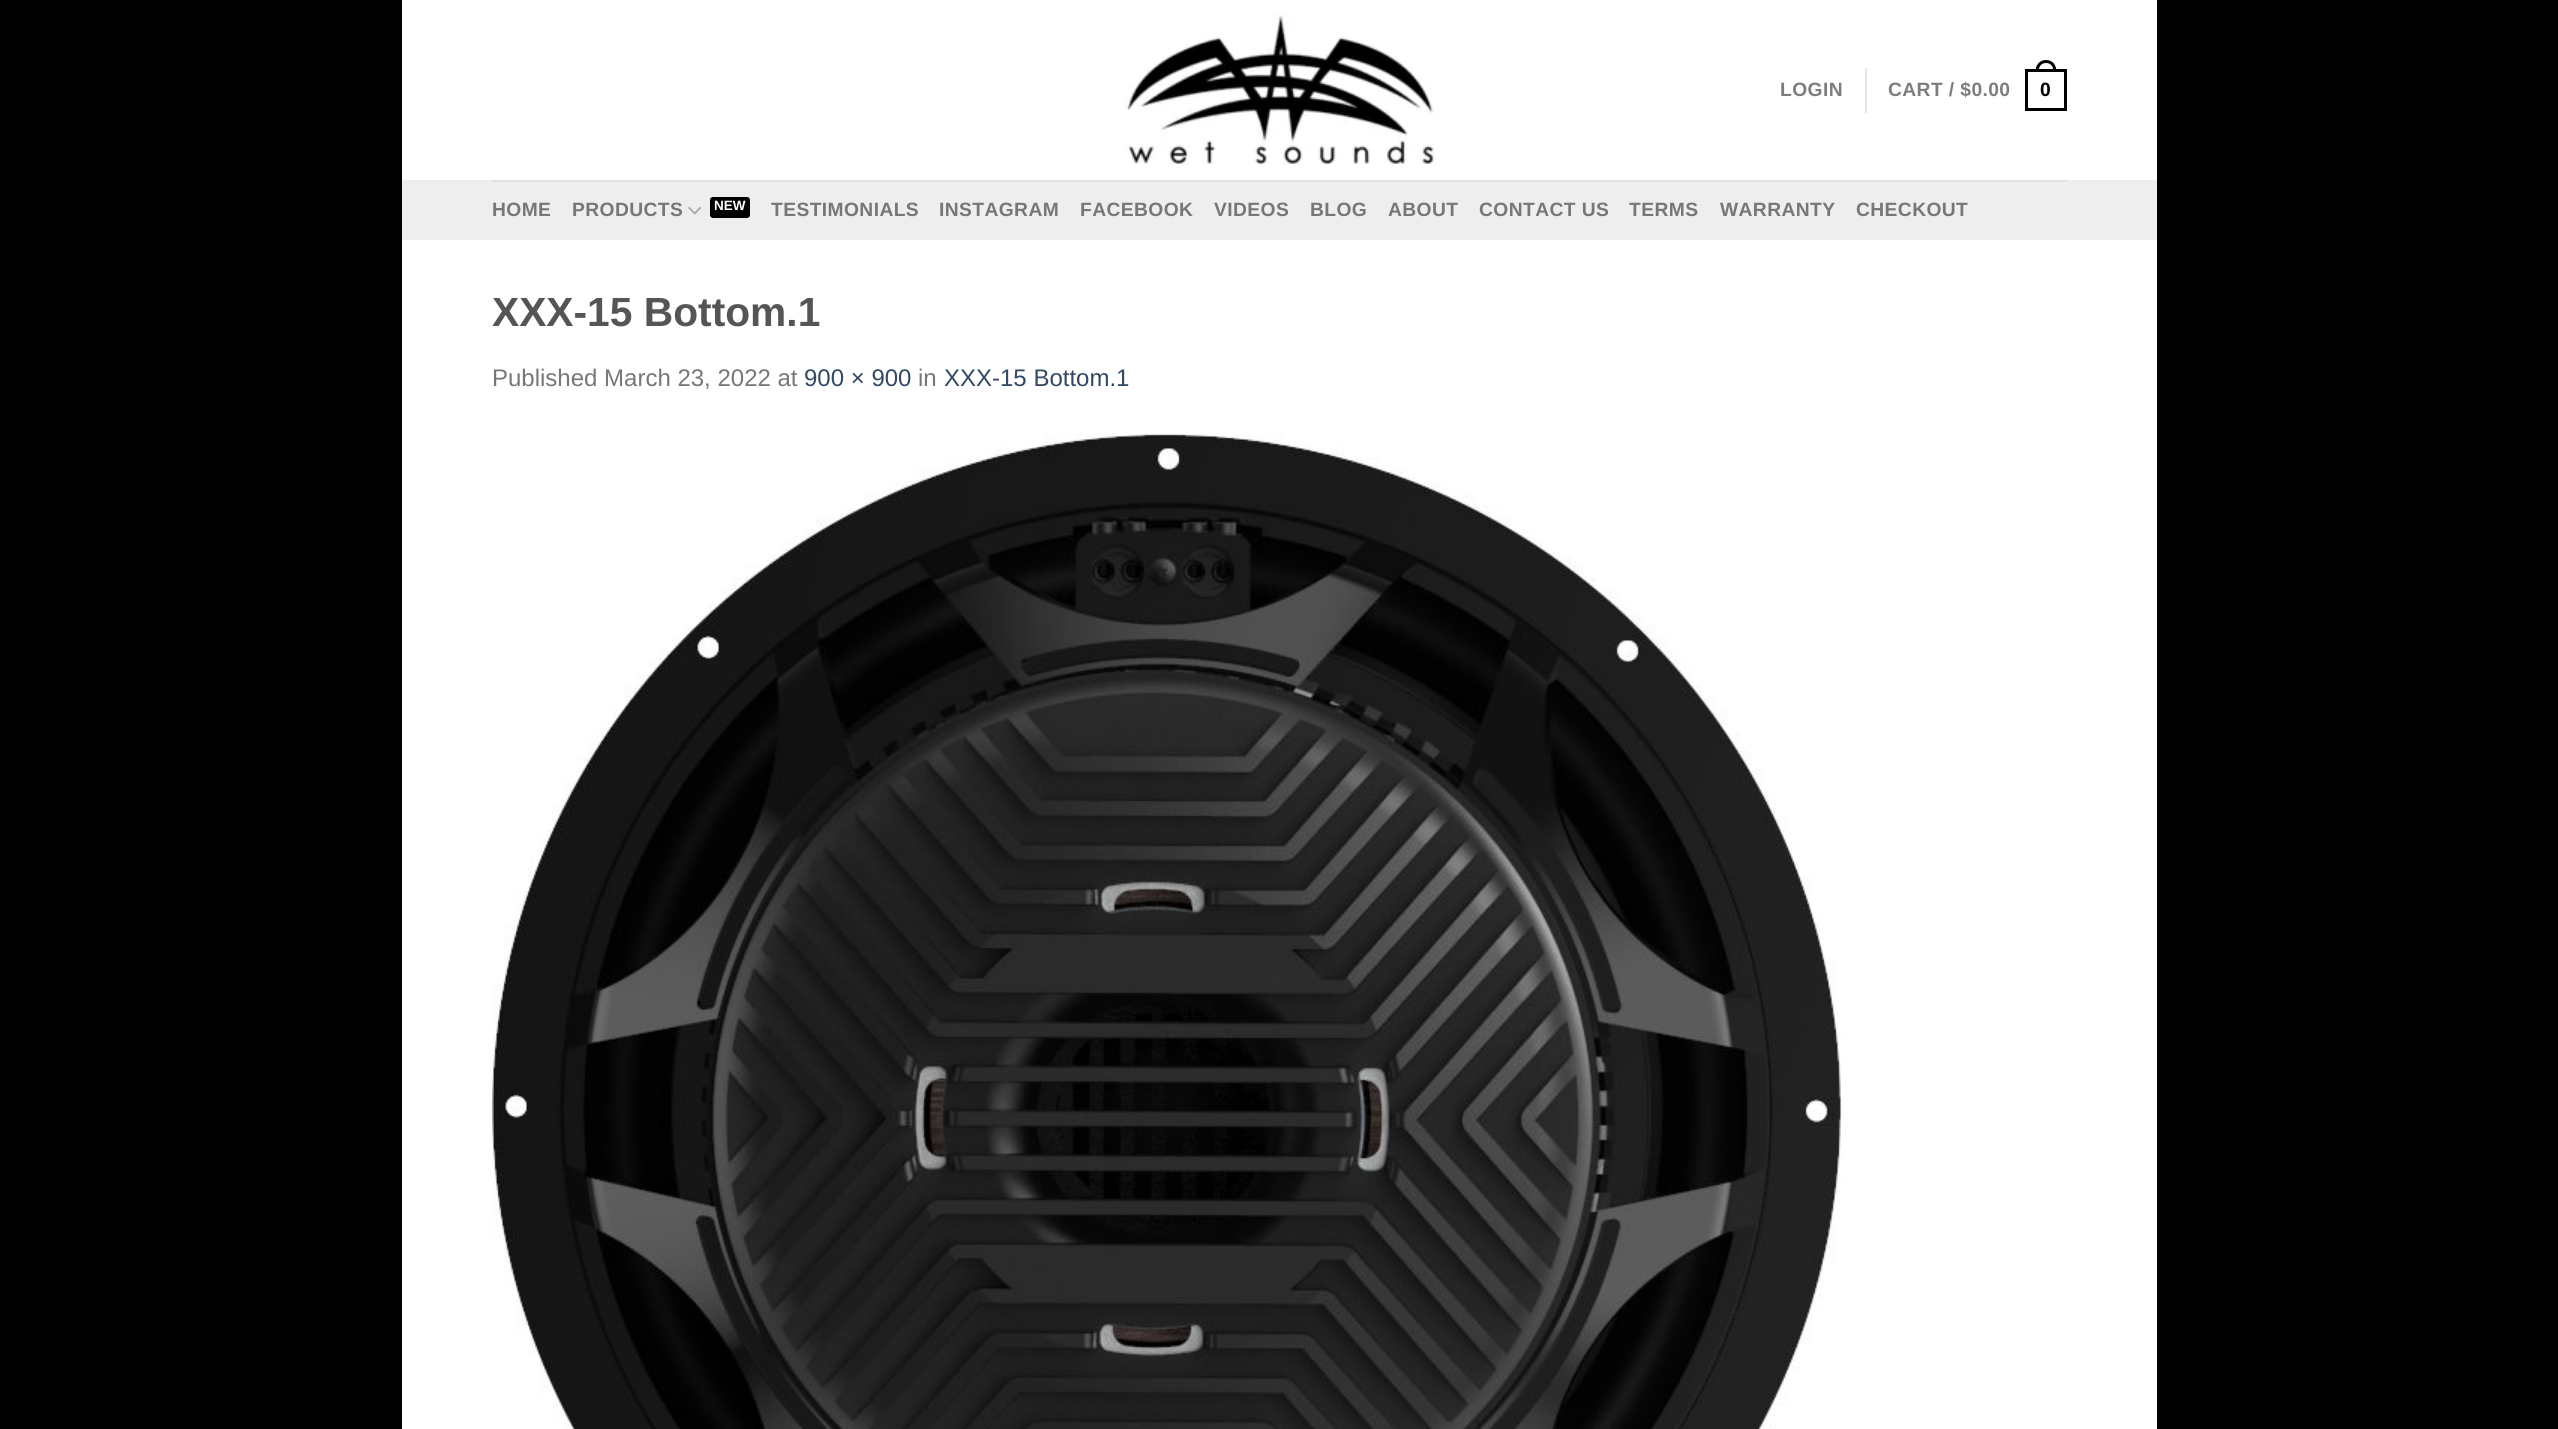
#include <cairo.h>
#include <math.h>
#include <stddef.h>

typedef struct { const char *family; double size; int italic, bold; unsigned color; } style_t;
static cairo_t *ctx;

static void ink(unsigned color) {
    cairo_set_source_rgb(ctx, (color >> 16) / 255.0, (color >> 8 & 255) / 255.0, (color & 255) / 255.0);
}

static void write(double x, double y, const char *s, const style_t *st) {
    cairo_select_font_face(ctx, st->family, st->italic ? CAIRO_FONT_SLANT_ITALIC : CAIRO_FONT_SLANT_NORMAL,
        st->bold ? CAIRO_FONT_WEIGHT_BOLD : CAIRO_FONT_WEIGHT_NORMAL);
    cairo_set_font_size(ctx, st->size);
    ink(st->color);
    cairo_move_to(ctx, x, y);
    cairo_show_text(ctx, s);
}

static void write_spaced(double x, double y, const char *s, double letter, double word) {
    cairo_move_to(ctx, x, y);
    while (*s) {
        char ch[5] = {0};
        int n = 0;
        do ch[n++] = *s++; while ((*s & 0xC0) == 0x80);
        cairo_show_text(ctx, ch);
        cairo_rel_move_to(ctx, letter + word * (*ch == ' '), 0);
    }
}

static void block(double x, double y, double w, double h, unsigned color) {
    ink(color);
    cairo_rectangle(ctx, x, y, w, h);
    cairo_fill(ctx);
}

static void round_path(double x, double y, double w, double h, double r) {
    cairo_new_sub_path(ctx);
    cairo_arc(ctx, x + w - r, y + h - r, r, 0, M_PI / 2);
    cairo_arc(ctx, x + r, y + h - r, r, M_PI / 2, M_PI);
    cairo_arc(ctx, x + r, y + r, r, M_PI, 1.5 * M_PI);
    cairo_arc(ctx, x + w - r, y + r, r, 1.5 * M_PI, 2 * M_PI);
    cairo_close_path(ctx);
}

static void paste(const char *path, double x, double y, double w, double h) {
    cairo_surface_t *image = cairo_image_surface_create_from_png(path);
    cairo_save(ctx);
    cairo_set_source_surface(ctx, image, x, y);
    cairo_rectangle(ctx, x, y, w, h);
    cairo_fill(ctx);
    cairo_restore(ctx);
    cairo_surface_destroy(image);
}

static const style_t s1 = {"Liberation Sans", 13.5, 0, 1, 0xffffff};
static const style_t s2 = {"Liberation Sans", 40.75, 0, 1, 0x555555};
static const style_t s3 = {"Liberation Sans", 24, 0, 0, 0x777777};
static const style_t s4 = {"Liberation Sans", 24, 0, 0, 0x334862};

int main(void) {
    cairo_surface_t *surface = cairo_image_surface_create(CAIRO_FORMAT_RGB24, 2558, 1429);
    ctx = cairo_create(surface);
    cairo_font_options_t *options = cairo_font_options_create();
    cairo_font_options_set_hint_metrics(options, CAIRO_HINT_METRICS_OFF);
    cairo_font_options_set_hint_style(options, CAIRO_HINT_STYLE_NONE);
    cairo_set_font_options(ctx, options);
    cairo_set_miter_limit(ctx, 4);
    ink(0x000000);
    cairo_paint(ctx);
    block(402, 0, 1755, 1429, 0xffffff);
    paste("pic1.png", 1125, 13, 310, 152);
    cairo_select_font_face(ctx, "Liberation Sans", CAIRO_FONT_SLANT_NORMAL, CAIRO_FONT_WEIGHT_BOLD);
    cairo_set_font_size(ctx, 19.25);
    ink(0x7d7d7d);
    write_spaced(1780, 96, "LOGIN", 0.4, 0);
    block(1865, 68, 2, 45, 0xe6e6e6);
    ink(0x7d7d7d);
    write_spaced(1888, 96, "CART / $0.00", 0.4, 0);
    cairo_rectangle(ctx, 2026.5, 70.5, 39, 39);
    ink(0x020101);
    cairo_set_line_width(ctx, 3);
    cairo_stroke(ctx);
    cairo_set_fill_rule(ctx, CAIRO_FILL_RULE_EVEN_ODD);
    cairo_new_path(ctx);
    cairo_move_to(ctx, 2046, 60);
    cairo_curve_to(ctx, 2053, 60, 2056.5, 65.5, 2056.5, 72);
    cairo_line_to(ctx, 2035.5, 72);
    cairo_curve_to(ctx, 2035.5, 65.5, 2039, 60, 2046, 60);
    cairo_close_path(ctx);
    cairo_move_to(ctx, 2046, 63);
    cairo_curve_to(ctx, 2051.5, 63, 2053.5, 67.5, 2053.5, 72);
    cairo_line_to(ctx, 2038.5, 72);
    cairo_curve_to(ctx, 2038.5, 67.5, 2040.5, 63, 2046, 63);
    cairo_close_path(ctx);
    cairo_fill(ctx);
    write_spaced(2040, 96, "0", 0.4, 0);
    block(402, 180, 1755, 60, 0xeeeeee);
    block(492, 180, 1575, 2, 0xe2e2e2);
    ink(0x777777);
    write_spaced(492, 216, "HOME", 0.4, 0);
    write_spaced(572, 216, "PRODUCTS", 0.4, 0);
    paste("pic2.png", 688, 206, 14, 9);
    ink(0x020101);
    round_path(710, 197, 40, 21, 3);
    cairo_fill(ctx);
    write(714, 210, "NEW", &s1);
    cairo_set_font_size(ctx, 19.25);
    ink(0x777777);
    write_spaced(771, 216, "TESTIMONIALS", 0.4, 0);
    write_spaced(939, 216, "INSTAGRAM", 0.4, 0);
    write_spaced(1080, 216, "FACEBOOK", 0.4, 0);
    write_spaced(1214, 216, "VIDEOS", 0.4, 0);
    write_spaced(1310, 216, "BLOG", 0.4, 0);
    write_spaced(1388, 216, "ABOUT", 0.4, 0);
    write_spaced(1479, 216, "CONTACT US", 0.4, 0);
    write_spaced(1629, 216, "TERMS", 0.4, 0);
    write_spaced(1720, 216, "WARRANTY", 0.4, 0);
    write_spaced(1856, 216, "CHECKOUT", 0.4, 0);
    write(492, 326, "XXX-15 Bottom.1", &s2);
    write(492, 386, "Published March 23, 2022 at", &s3);
    write(804, 386, "900 × 900", &s4);
    write(918, 386, "in", &s3);
    write(944, 386, "XXX-15 Bottom.1", &s4);
    paste("pic3.png", 492, 433, 1350, 996);
    cairo_surface_write_to_png(surface, "screenshot.png");
    cairo_font_options_destroy(options);
    cairo_destroy(ctx);
    cairo_surface_destroy(surface);
    return 0;
}
